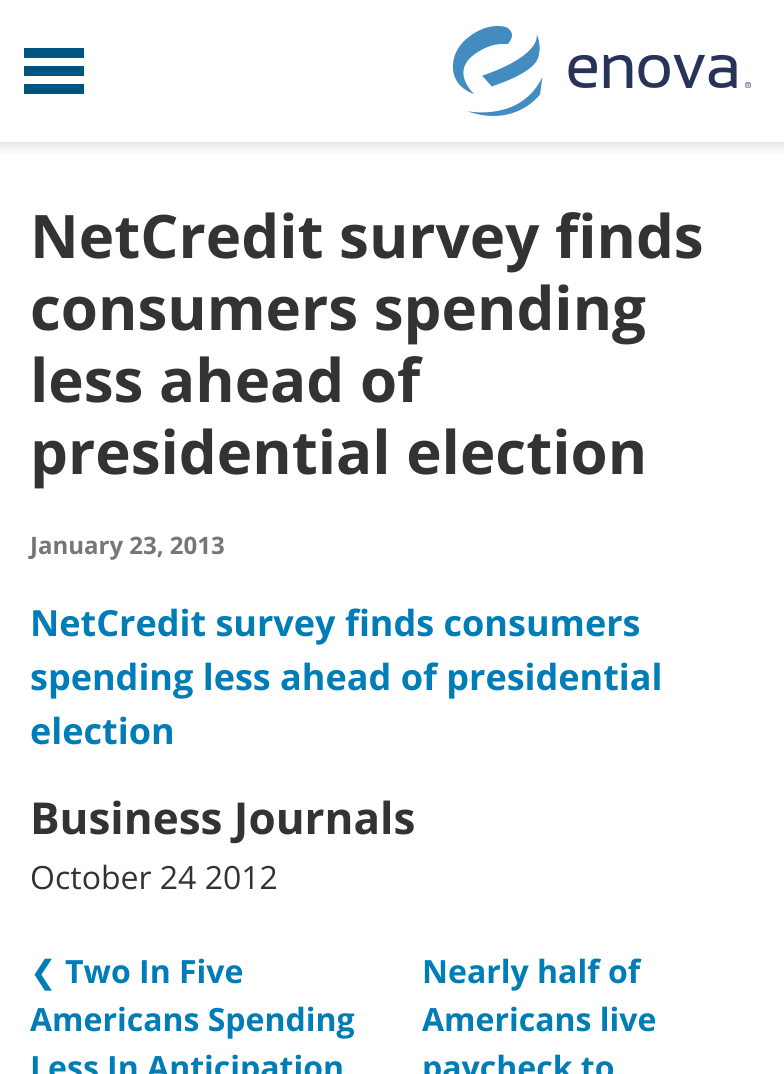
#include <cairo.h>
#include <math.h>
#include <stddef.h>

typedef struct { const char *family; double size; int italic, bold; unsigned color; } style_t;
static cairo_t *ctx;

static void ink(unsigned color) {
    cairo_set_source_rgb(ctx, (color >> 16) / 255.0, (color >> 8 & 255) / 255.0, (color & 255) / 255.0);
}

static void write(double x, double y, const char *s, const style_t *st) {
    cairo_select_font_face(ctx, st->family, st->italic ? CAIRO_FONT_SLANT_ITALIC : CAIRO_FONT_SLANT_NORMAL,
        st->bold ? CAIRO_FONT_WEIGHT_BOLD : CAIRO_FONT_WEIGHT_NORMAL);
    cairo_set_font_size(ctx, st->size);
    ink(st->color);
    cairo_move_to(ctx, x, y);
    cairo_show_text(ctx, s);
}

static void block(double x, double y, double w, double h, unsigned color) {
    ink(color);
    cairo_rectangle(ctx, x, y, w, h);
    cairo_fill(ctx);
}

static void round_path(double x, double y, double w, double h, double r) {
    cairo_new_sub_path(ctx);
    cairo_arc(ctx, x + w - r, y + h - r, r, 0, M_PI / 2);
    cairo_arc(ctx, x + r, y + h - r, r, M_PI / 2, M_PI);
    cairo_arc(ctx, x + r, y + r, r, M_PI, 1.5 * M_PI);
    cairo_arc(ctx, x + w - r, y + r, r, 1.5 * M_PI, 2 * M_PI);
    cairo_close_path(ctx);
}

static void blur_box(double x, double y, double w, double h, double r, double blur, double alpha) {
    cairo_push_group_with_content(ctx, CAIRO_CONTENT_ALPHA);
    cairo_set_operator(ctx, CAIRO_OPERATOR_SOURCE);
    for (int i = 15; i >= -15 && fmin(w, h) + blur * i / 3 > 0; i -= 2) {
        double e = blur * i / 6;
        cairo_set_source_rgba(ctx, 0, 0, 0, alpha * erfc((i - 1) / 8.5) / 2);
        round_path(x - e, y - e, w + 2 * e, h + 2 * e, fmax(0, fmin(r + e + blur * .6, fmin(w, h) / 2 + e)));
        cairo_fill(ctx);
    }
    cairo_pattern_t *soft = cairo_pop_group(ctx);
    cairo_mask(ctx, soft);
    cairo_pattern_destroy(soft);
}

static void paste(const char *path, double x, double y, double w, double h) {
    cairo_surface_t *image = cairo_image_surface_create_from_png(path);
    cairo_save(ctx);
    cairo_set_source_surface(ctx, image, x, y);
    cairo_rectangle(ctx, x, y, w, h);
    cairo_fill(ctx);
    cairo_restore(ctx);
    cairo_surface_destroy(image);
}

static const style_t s1 = {"Open Sans", 60, 0, 1, 0x333333};
static const style_t s2 = {"Open Sans", 24, 0, 1, 0x767676};
static const style_t s3 = {"Open Sans", 36, 0, 1, 0x007db7};
static const style_t s4 = {"Open Sans", 44, 0, 1, 0x333333};
static const style_t s5 = {"Open Sans", 32, 0, 0, 0x333333};
static const style_t s6 = {"DejaVu Sans", 32, 0, 0, 0x007db7};
static const style_t s7 = {"Open Sans", 32, 0, 1, 0x007db7};

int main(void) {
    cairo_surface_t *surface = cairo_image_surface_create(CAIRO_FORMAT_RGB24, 784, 1074);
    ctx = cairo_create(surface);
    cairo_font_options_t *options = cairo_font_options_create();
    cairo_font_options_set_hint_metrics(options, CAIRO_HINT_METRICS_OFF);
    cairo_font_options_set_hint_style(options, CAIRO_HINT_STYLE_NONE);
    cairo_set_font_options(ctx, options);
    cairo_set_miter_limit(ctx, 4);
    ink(0xffffff);
    cairo_paint(ctx);
    cairo_save(ctx);
    cairo_rectangle(ctx, 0, 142, 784, 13);
    cairo_clip(ctx);
    ink(0x777777);
    blur_box(0, 0, 784, 142, 0, 8, 0.4);
    cairo_restore(ctx);
    block(24, 48, 60, 10, 0x005580);
    block(24, 66, 60, 10, 0x005580);
    block(24, 84, 60, 10, 0x005580);
    paste("pic1.png", 452, 26, 300, 90);
    write(30, 258, "NetCredit survey finds", &s1);
    write(30, 330, "consumers spending", &s1);
    write(30, 402, "less ahead of", &s1);
    write(30, 474, "presidential election", &s1);
    write(30, 554, "January 23, 2013", &s2);
    write(30, 636, "NetCredit survey finds consumers", &s3);
    write(30, 690, "spending less ahead of presidential", &s3);
    write(30, 744, "election", &s3);
    write(30, 834, "Business Journals", &s4);
    write(30, 889, "October 24 2012", &s5);
    write(30, 983, "❮", &s6);
    write(65, 983, "Two In Five", &s7);
    write(30, 1031, "Americans Spending", &s7);
    write(30, 1079, "Less In Anticipation", &s7);
    write(422, 983, "Nearly half of", &s7);
    write(422, 1031, "Americans live", &s7);
    write(422, 1079, "paycheck to", &s7);
    cairo_surface_write_to_png(surface, "screenshot.png");
    cairo_font_options_destroy(options);
    cairo_destroy(ctx);
    cairo_surface_destroy(surface);
    return 0;
}
